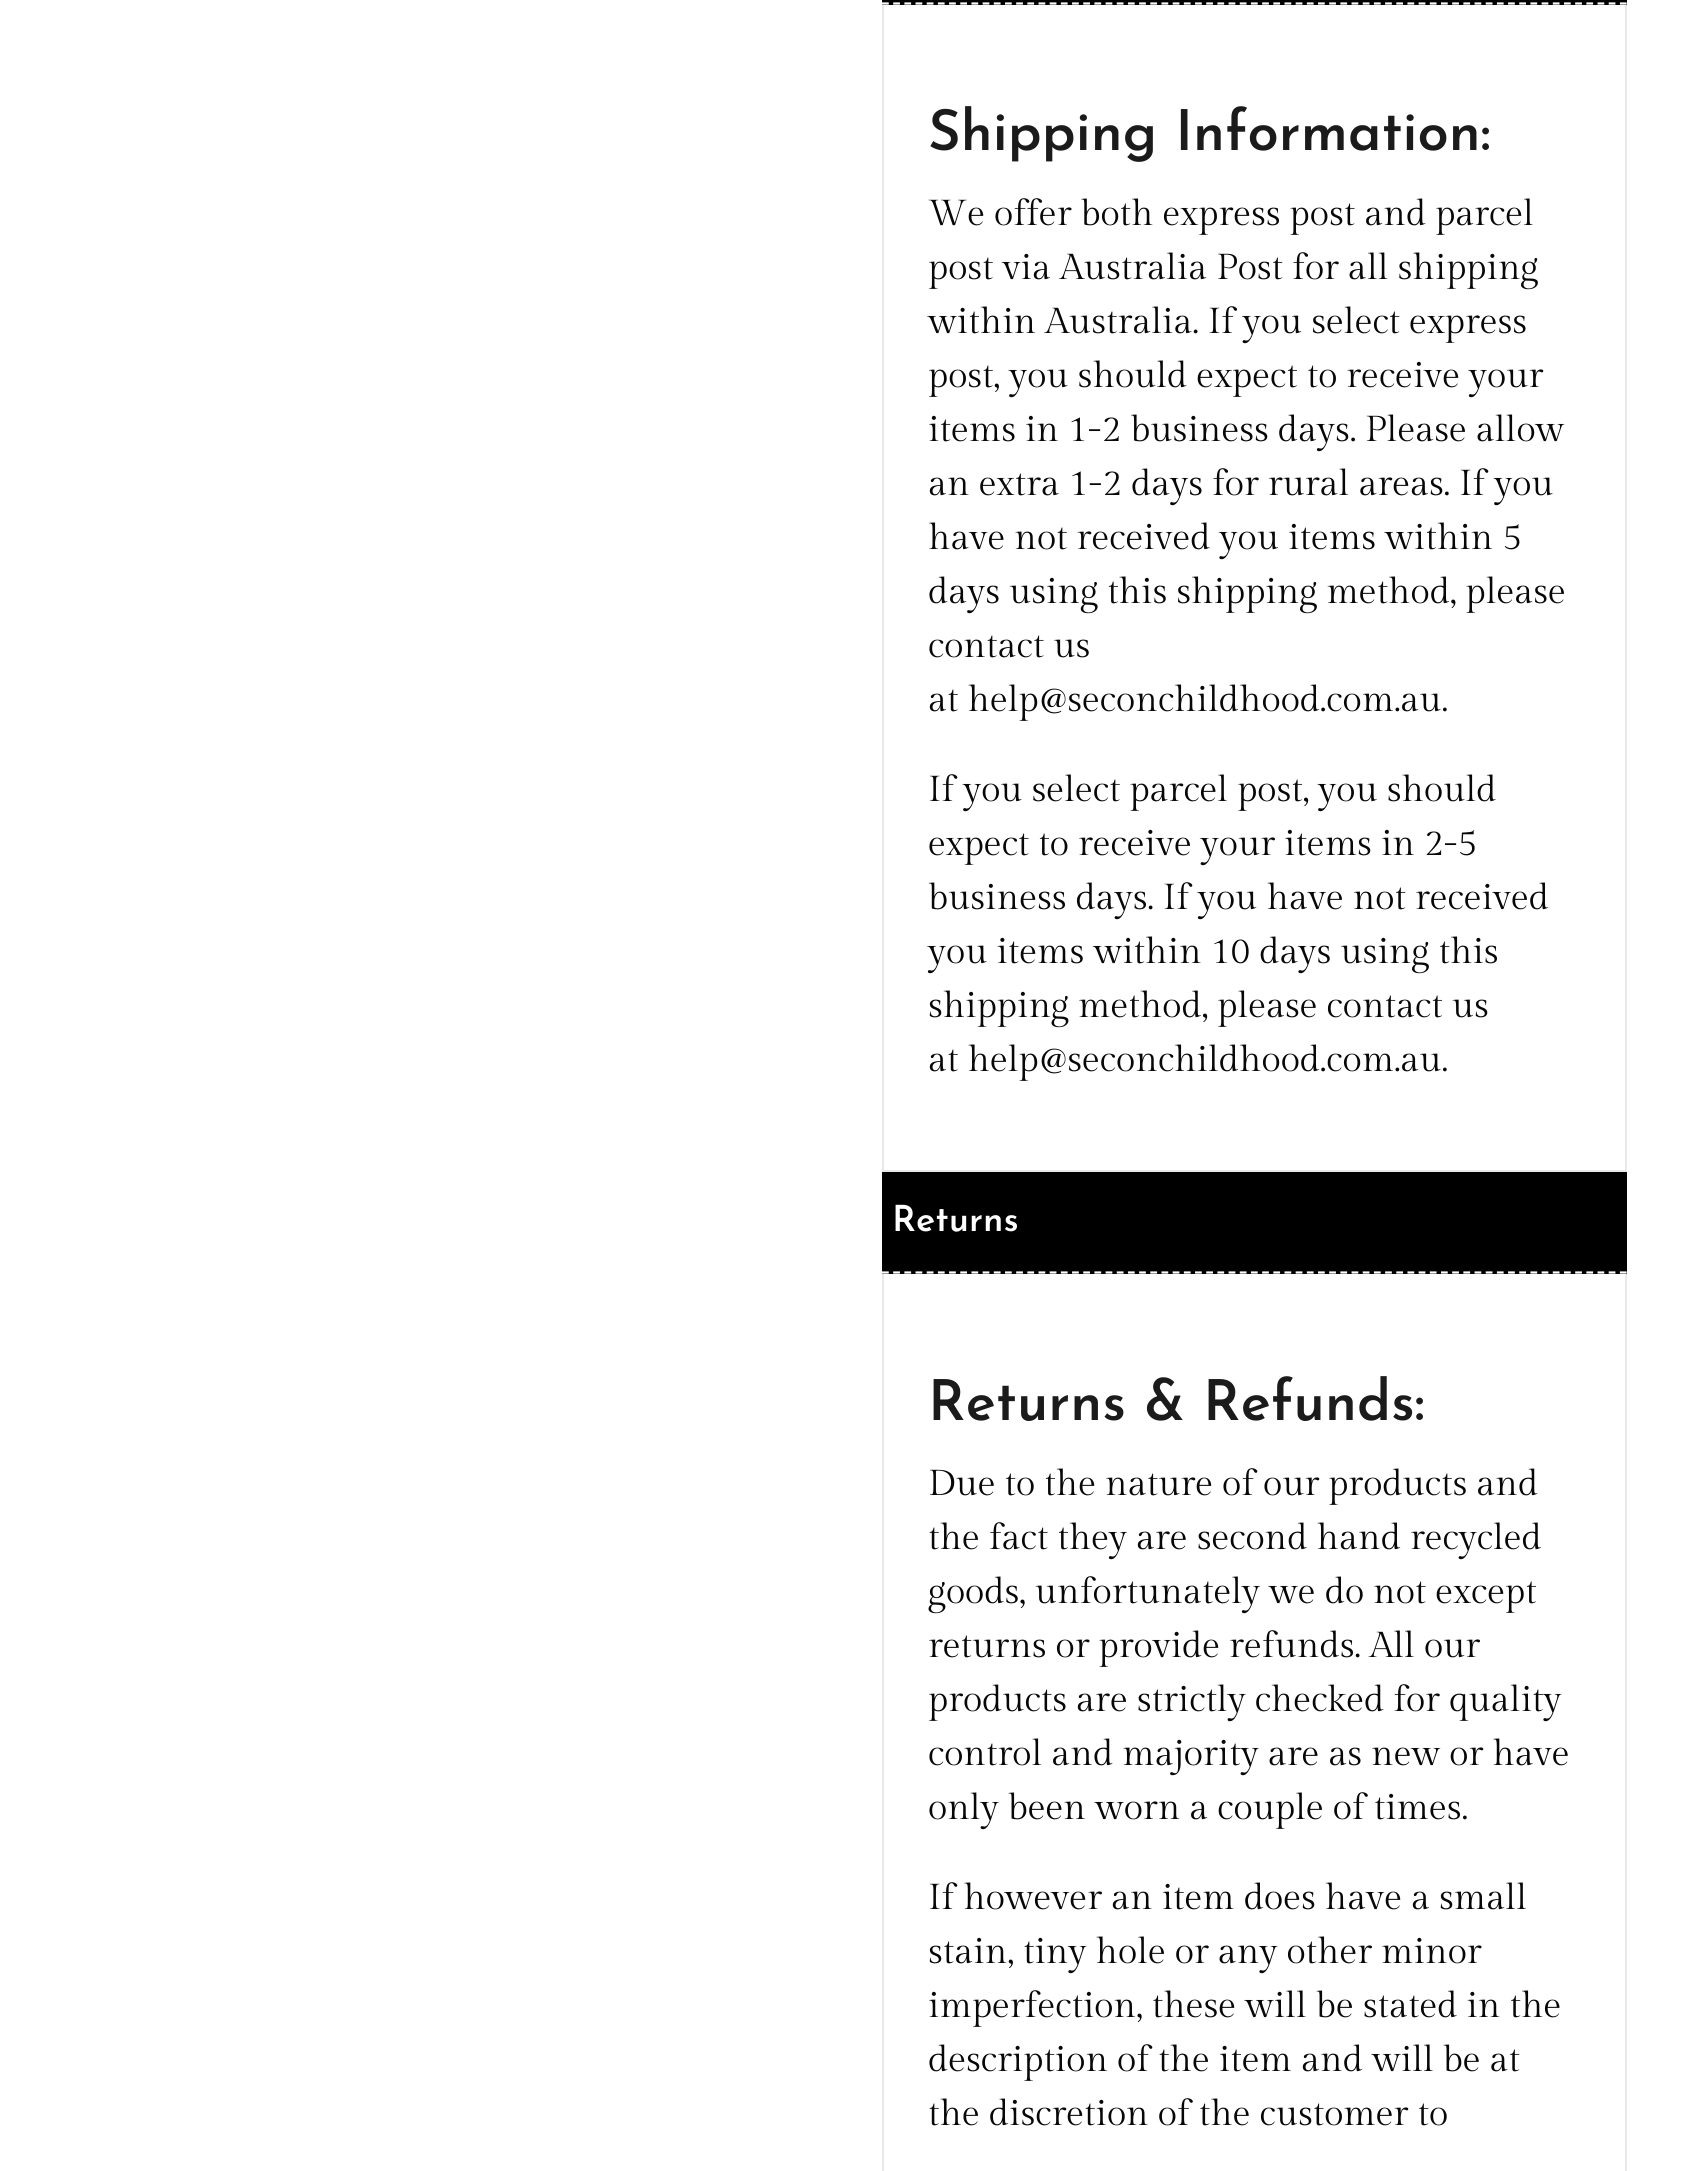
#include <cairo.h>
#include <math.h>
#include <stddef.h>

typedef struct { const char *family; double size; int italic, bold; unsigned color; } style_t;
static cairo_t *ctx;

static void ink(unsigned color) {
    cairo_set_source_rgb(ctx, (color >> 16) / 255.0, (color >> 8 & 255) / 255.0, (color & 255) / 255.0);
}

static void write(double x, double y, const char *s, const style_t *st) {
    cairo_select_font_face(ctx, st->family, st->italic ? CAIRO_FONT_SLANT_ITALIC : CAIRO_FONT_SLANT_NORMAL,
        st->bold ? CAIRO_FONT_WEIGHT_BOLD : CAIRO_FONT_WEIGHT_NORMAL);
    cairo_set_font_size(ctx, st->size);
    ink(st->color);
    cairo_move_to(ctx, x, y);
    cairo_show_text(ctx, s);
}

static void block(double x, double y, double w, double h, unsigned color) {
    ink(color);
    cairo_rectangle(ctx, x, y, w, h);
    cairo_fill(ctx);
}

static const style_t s1 = {"Josefin Sans Thin", 56.25, 0, 0, 0x1b1b1b};
static const style_t s2 = {"Gilda Display", 36, 0, 0, 0x070707};
static const style_t s3 = {"Josefin Sans Thin", 36, 0, 0, 0xffffff};

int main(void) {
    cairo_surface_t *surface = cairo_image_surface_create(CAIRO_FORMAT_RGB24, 1693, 2171);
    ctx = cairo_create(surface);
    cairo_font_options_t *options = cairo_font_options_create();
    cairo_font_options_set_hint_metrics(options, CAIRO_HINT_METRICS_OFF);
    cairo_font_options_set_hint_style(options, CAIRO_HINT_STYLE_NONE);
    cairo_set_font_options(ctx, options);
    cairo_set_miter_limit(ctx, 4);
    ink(0xffffff);
    cairo_paint(ctx);
    block(882, 0, 745, 5, 0x000000);
    cairo_new_path(ctx);
    cairo_move_to(ctx, 882, 3.5);
    cairo_line_to(ctx, 1627, 3.5);
    ink(0xffffff);
    cairo_set_line_width(ctx, 2.2);
    cairo_set_dash(ctx, (double[]){6.75, 4.43}, 2, 0);
    cairo_stroke(ctx);
    block(1625, 5, 2, 1167, 0xe8e8e8);
    block(882, 1170, 745, 2, 0xe8e8e8);
    block(882, 5, 2, 1167, 0xe8e8e8);
    write(928, 150, "Shipping Information:", &s1);
    write(928, 225, "We offer both express post and parcel", &s2);
    write(928, 279, "post via Australia Post for all shipping", &s2);
    write(928, 333, "within Australia. If you select express", &s2);
    write(928, 387, "post, you should expect to receive your", &s2);
    write(928, 441, "items in 1-2 business days. Please allow", &s2);
    write(928, 495, "an extra 1-2 days for rural areas. If you", &s2);
    write(928, 549, "have not received you items within 5", &s2);
    write(928, 603, "days using this shipping method, please", &s2);
    write(928, 657, "contact us", &s2);
    write(928, 711, "at help@seconchildhood.com.au.", &s2);
    write(928, 801, "If you select parcel post, you should", &s2);
    write(928, 855, "expect to receive your items in 2-5", &s2);
    write(928, 909, "business days. If you have not received", &s2);
    write(928, 963, "you items within 10 days using this", &s2);
    write(928, 1017, "shipping method, please contact us", &s2);
    write(928, 1071, "at help@seconchildhood.com.au.", &s2);
    block(882, 1172, 745, 102, 0x000000);
    cairo_new_path(ctx);
    cairo_move_to(ctx, 882, 1272.5);
    cairo_line_to(ctx, 1627, 1272.5);
    ink(0xffffff);
    cairo_stroke(ctx);
    write(892, 1231, "Returns", &s3);
    block(1625, 1274, 2, 897, 0xe8e8e8);
    block(882, 1274, 2, 897, 0xe8e8e8);
    write(928, 1420, "Returns & Refunds:", &s1);
    write(928, 1495, "Due to the nature of our products and", &s2);
    write(928, 1549, "the fact they are second hand recycled", &s2);
    write(928, 1603, "goods, unfortunately we do not except", &s2);
    write(928, 1657, "returns or provide refunds. All our", &s2);
    write(928, 1711, "products are strictly checked for quality", &s2);
    write(928, 1765, "control and majority are as new or have", &s2);
    write(928, 1819, "only been worn a couple of times.", &s2);
    write(928, 1909, "If however an item does have a small", &s2);
    write(928, 1963, "stain, tiny hole or any other minor", &s2);
    write(928, 2017, "imperfection, these will be stated in the", &s2);
    write(928, 2071, "description of the item and will be at", &s2);
    write(928, 2125, "the discretion of the customer to", &s2);
    cairo_surface_write_to_png(surface, "screenshot.png");
    cairo_font_options_destroy(options);
    cairo_destroy(ctx);
    cairo_surface_destroy(surface);
    return 0;
}
